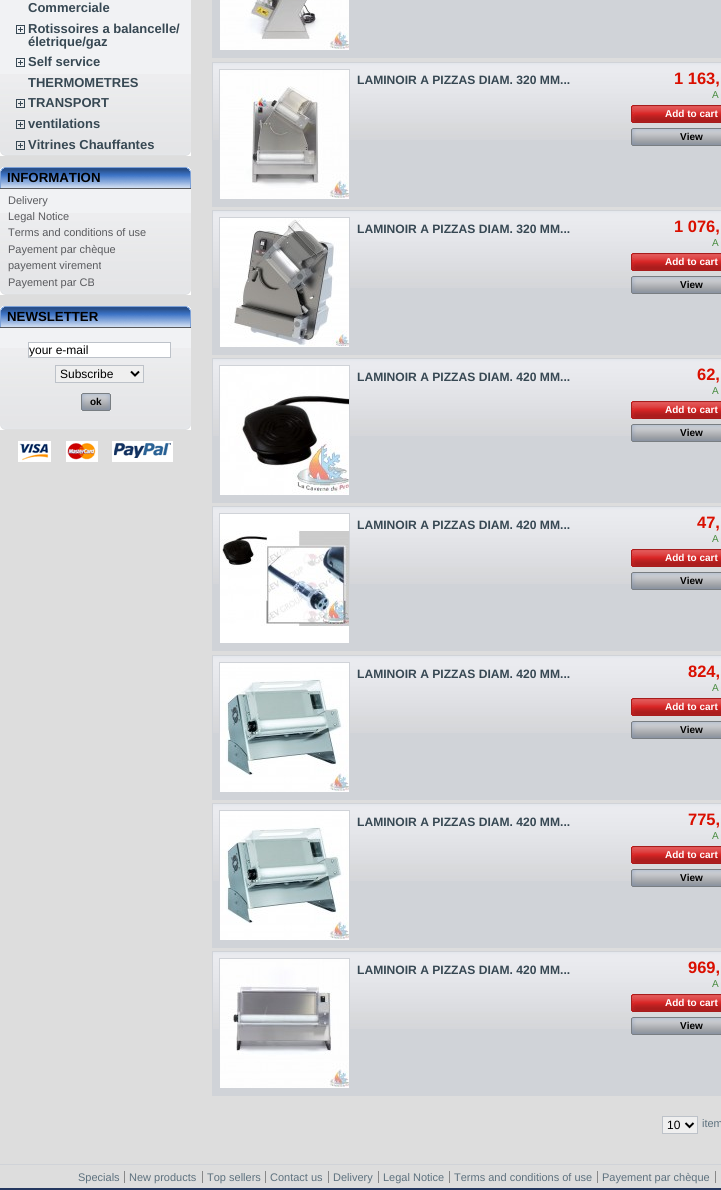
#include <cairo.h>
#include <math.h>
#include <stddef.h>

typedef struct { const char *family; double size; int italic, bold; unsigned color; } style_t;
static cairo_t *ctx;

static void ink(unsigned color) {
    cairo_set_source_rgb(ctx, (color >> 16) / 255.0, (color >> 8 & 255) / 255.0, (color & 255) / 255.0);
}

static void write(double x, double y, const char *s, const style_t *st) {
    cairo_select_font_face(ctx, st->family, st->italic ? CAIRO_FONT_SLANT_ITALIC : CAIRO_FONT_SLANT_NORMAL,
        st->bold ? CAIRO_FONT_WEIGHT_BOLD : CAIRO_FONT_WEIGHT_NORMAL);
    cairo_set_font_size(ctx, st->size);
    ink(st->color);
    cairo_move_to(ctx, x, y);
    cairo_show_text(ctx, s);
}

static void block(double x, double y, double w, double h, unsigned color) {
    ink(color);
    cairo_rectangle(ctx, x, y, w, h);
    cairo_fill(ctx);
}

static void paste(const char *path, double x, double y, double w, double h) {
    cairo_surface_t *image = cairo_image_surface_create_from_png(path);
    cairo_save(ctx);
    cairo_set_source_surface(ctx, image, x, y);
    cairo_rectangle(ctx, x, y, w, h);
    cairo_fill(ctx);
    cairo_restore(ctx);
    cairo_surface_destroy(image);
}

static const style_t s1 = {"Liberation Sans", 13, 0, 1, 0x374853};
static const style_t s2 = {"Liberation Sans", 13.25, 0, 1, 0x000000};
static const style_t s3 = {"Liberation Sans", 11, 0, 0, 0x595a5e};
static const style_t s4 = {"Liberation Sans", 12, 0, 0, 0x000000};
static const style_t s5 = {"Liberation Sans", 10, 0, 1, 0x000000};
static const style_t s6 = {"Liberation Sans", 12.1, 0, 1, 0x374853};
static const style_t s7 = {"Liberation Sans", 16.5, 0, 1, 0xda0f00};
static const style_t s8 = {"Liberation Sans", 10, 0, 0, 0x488c40};
static const style_t s9 = {"Liberation Sans", 10, 0, 1, 0xffffff};
static const style_t s10 = {"Liberation Sans", 11, 0, 0, 0x5d717e};

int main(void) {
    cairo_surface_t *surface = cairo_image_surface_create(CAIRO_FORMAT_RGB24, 721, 1190);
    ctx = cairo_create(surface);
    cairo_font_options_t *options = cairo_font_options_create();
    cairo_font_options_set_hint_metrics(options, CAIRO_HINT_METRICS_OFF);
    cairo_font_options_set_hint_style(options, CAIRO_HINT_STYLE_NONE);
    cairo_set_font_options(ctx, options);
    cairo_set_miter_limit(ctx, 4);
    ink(0x24375f);
    cairo_paint(ctx);
    block(0, 0, 721, 1188, 0xdddddd);
    paste("pic1.png", 0, 151, 191, 5);
    block(0, 0, 191, 74, 0xf1f2f4);
    paste("pic2.png", 0, 74, 191, 77);
    write(28, 12, "Commerciale", &s1);
    paste("pic3.png", 16, 25, 9, 9);
    write(28, 33, "Rotissoires a balancelle/", &s1);
    write(28, 46, "életrique/gaz", &s1);
    paste("pic3.png", 16, 58, 9, 9);
    write(28, 66, "Self service", &s1);
    write(28, 87, "THERMOMETRES", &s1);
    paste("pic4.png", 16, 99, 9, 9);
    write(28, 107, "TRANSPORT", &s1);
    paste("pic5.png", 16, 120, 9, 9);
    write(28, 128, "ventilations", &s1);
    paste("pic6.png", 16, 141, 9, 9);
    write(28, 149, "Vitrines Chauffantes", &s1);
    paste("pic1.png", 0, 290, 191, 5);
    paste("pic7.png", 0, 167, 191, 21);
    block(0, 188, 191, 1, 0x595a5e);
    write(7, 182, "INFORMATION", &s2);
    block(0, 189, 191, 24, 0xf1f2f4);
    paste("pic8.png", 0, 213, 191, 77);
    write(8, 204, "Delivery", &s3);
    write(8, 220, "Legal Notice", &s3);
    write(8, 236, "Terms and conditions of use", &s3);
    write(8, 253, "Payement par chèque", &s3);
    write(8, 269, "payement virement", &s3);
    write(8, 286, "Payement par CB", &s3);
    paste("pic1.png", 0, 425, 191, 5);
    paste("pic7.png", 0, 306, 191, 21);
    block(0, 327, 191, 1, 0x595a5e);
    write(7, 321, "NEWSLETTER", &s2);
    block(0, 328, 191, 20, 0xf1f2f4);
    paste("pic8.png", 0, 348, 191, 77);
    ink(0xffffff);
    cairo_rectangle(ctx, 28.5, 342.5, 142, 15);
    cairo_fill_preserve(ctx);
    ink(0xbdc2c9);
    cairo_set_line_width(ctx, 1);
    cairo_stroke(ctx);
    write(29, 354, "your e-mail", &s4);
    ink(0xefefef);
    cairo_rectangle(ctx, 55.5, 365.5, 88, 17);
    cairo_fill_preserve(ctx);
    ink(0xbdc2c9);
    cairo_stroke(ctx);
    cairo_new_path(ctx);
    cairo_move_to(ctx, 131, 371.5);
    cairo_line_to(ctx, 135, 375.5);
    cairo_line_to(ctx, 139, 371.5);
    ink(0x000000);
    cairo_set_line_width(ctx, 2);
    cairo_stroke(ctx);
    write(60, 378, "Subscribe", &s4);
    block(81, 393, 30, 18, 0xefefef);
    paste("pic9.png", 81, 393, 30, 18);
    write(90, 405, "ok", &s5);
    paste("pic10.png", 18, 441, 33, 21);
    paste("pic11.png", 66, 441, 32, 21);
    paste("pic12.png", 112, 441, 61, 21);
    block(212, 0, 509, 58, 0xd0d3d8);
    paste("pic13.png", 220, 0, 129, 50);
    block(213, 140, 508, 66, 0xd0d3d8);
    paste("pic14.png", 213, 63, 508, 77);
    cairo_rectangle(ctx, 212.5, 62.5, 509, 144);
    cairo_set_line_width(ctx, 1);
    cairo_stroke(ctx);
    cairo_rectangle(ctx, 219.5, 69.5, 130, 130);
    cairo_stroke(ctx);
    paste("pic15.png", 220, 70, 129, 129);
    write(357, 84, "LAMINOIR A PIZZAS DIAM. 320 MM...", &s6);
    write(674, 84, "1 163,", &s7);
    write(712, 98, "A", &s8);
    paste("pic16.png", 631, 105, 90, 18);
    write(665, 117, "Add to cart", &s9);
    paste("pic17.png", 631, 128, 90, 18);
    write(680, 140, "View", &s5);
    block(213, 288, 508, 66, 0xd0d3d8);
    paste("pic14.png", 213, 211, 508, 77);
    cairo_rectangle(ctx, 212.5, 210.5, 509, 144);
    cairo_stroke(ctx);
    cairo_rectangle(ctx, 219.5, 217.5, 130, 130);
    cairo_stroke(ctx);
    paste("pic18.png", 220, 218, 129, 129);
    write(357, 233, "LAMINOIR A PIZZAS DIAM. 320 MM...", &s6);
    write(674, 232, "1 076,", &s7);
    write(712, 246, "A", &s8);
    paste("pic16.png", 631, 253, 90, 18);
    write(665, 265, "Add to cart", &s9);
    paste("pic17.png", 631, 276, 90, 18);
    write(680, 288, "View", &s5);
    block(213, 436, 508, 66, 0xd0d3d8);
    paste("pic14.png", 213, 359, 508, 77);
    cairo_rectangle(ctx, 212.5, 358.5, 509, 144);
    cairo_stroke(ctx);
    cairo_rectangle(ctx, 219.5, 365.5, 130, 130);
    cairo_stroke(ctx);
    paste("pic19.png", 220, 366, 129, 129);
    write(357, 381, "LAMINOIR A PIZZAS DIAM. 420 MM...", &s6);
    write(697, 380, "62,", &s7);
    write(712, 394, "A", &s8);
    paste("pic16.png", 631, 401, 90, 18);
    write(665, 413, "Add to cart", &s9);
    paste("pic17.png", 631, 424, 90, 18);
    write(680, 436, "View", &s5);
    block(213, 584, 508, 66, 0xd0d3d8);
    paste("pic14.png", 213, 507, 508, 77);
    cairo_rectangle(ctx, 212.5, 506.5, 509, 144);
    cairo_stroke(ctx);
    cairo_rectangle(ctx, 219.5, 513.5, 130, 130);
    cairo_stroke(ctx);
    paste("pic20.png", 220, 514, 129, 129);
    write(357, 529, "LAMINOIR A PIZZAS DIAM. 420 MM...", &s6);
    write(697, 528, "47,", &s7);
    write(712, 542, "A", &s8);
    paste("pic16.png", 631, 549, 90, 18);
    write(665, 561, "Add to cart", &s9);
    paste("pic17.png", 631, 572, 90, 18);
    write(680, 584, "View", &s5);
    block(213, 733, 508, 66, 0xd0d3d8);
    paste("pic14.png", 213, 656, 508, 77);
    cairo_rectangle(ctx, 212.5, 655.5, 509, 144);
    cairo_stroke(ctx);
    cairo_rectangle(ctx, 219.5, 662.5, 130, 130);
    cairo_stroke(ctx);
    paste("pic21.png", 220, 663, 129, 129);
    write(357, 678, "LAMINOIR A PIZZAS DIAM. 420 MM...", &s6);
    write(688, 677, "824,", &s7);
    write(712, 691, "A", &s8);
    paste("pic16.png", 631, 698, 90, 18);
    write(665, 710, "Add to cart", &s9);
    paste("pic17.png", 631, 721, 90, 18);
    write(680, 733, "View", &s5);
    block(213, 881, 508, 66, 0xd0d3d8);
    paste("pic14.png", 213, 804, 508, 77);
    cairo_rectangle(ctx, 212.5, 803.5, 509, 144);
    cairo_stroke(ctx);
    cairo_rectangle(ctx, 219.5, 810.5, 130, 130);
    cairo_stroke(ctx);
    paste("pic21.png", 220, 811, 129, 129);
    write(357, 826, "LAMINOIR A PIZZAS DIAM. 420 MM...", &s6);
    write(688, 825, "775,", &s7);
    write(712, 839, "A", &s8);
    paste("pic16.png", 631, 846, 90, 18);
    write(665, 858, "Add to cart", &s9);
    paste("pic17.png", 631, 869, 90, 18);
    write(680, 881, "View", &s5);
    block(213, 1029, 508, 66, 0xd0d3d8);
    paste("pic14.png", 213, 952, 508, 77);
    cairo_rectangle(ctx, 212.5, 951.5, 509, 144);
    cairo_stroke(ctx);
    cairo_rectangle(ctx, 219.5, 958.5, 130, 130);
    cairo_stroke(ctx);
    paste("pic22.png", 220, 959, 129, 129);
    write(357, 974, "LAMINOIR A PIZZAS DIAM. 420 MM...", &s6);
    write(688, 973, "969,", &s7);
    write(712, 987, "A", &s8);
    paste("pic16.png", 631, 994, 90, 18);
    write(665, 1006, "Add to cart", &s9);
    paste("pic17.png", 631, 1017, 90, 18);
    write(680, 1029, "View", &s5);
    ink(0xefefef);
    cairo_rectangle(ctx, 662.5, 1116.5, 35, 17);
    cairo_fill_preserve(ctx);
    ink(0xbdc2c9);
    cairo_stroke(ctx);
    cairo_new_path(ctx);
    cairo_move_to(ctx, 685.5, 1123);
    cairo_line_to(ctx, 689.5, 1127);
    cairo_line_to(ctx, 693.5, 1123);
    ink(0x000000);
    cairo_set_line_width(ctx, 2);
    cairo_stroke(ctx);
    write(667, 1129, "10", &s4);
    write(702, 1127, "item", &s10);
    block(0, 1164, 721, 1, 0xd0d3d8);
    write(78, 1181, "Specials", &s10);
    write(129, 1181, "New products", &s10);
    block(124, 1171, 1, 12, 0x888888);
    write(207, 1181, "Top sellers", &s10);
    block(202, 1171, 1, 12, 0x888888);
    write(270, 1181, "Contact us", &s10);
    block(265, 1171, 1, 12, 0x888888);
    write(333, 1181, "Delivery", &s10);
    block(328, 1171, 1, 12, 0x888888);
    write(383, 1181, "Legal Notice", &s10);
    block(378, 1171, 1, 12, 0x888888);
    write(454, 1181, "Terms and conditions of use", &s10);
    block(449, 1171, 1, 12, 0x888888);
    write(602, 1181, "Payement par chèque", &s10);
    block(597, 1171, 1, 12, 0x888888);
    block(715, 1171, 1, 12, 0x888888);
    cairo_surface_write_to_png(surface, "screenshot.png");
    cairo_font_options_destroy(options);
    cairo_destroy(ctx);
    cairo_surface_destroy(surface);
    return 0;
}
